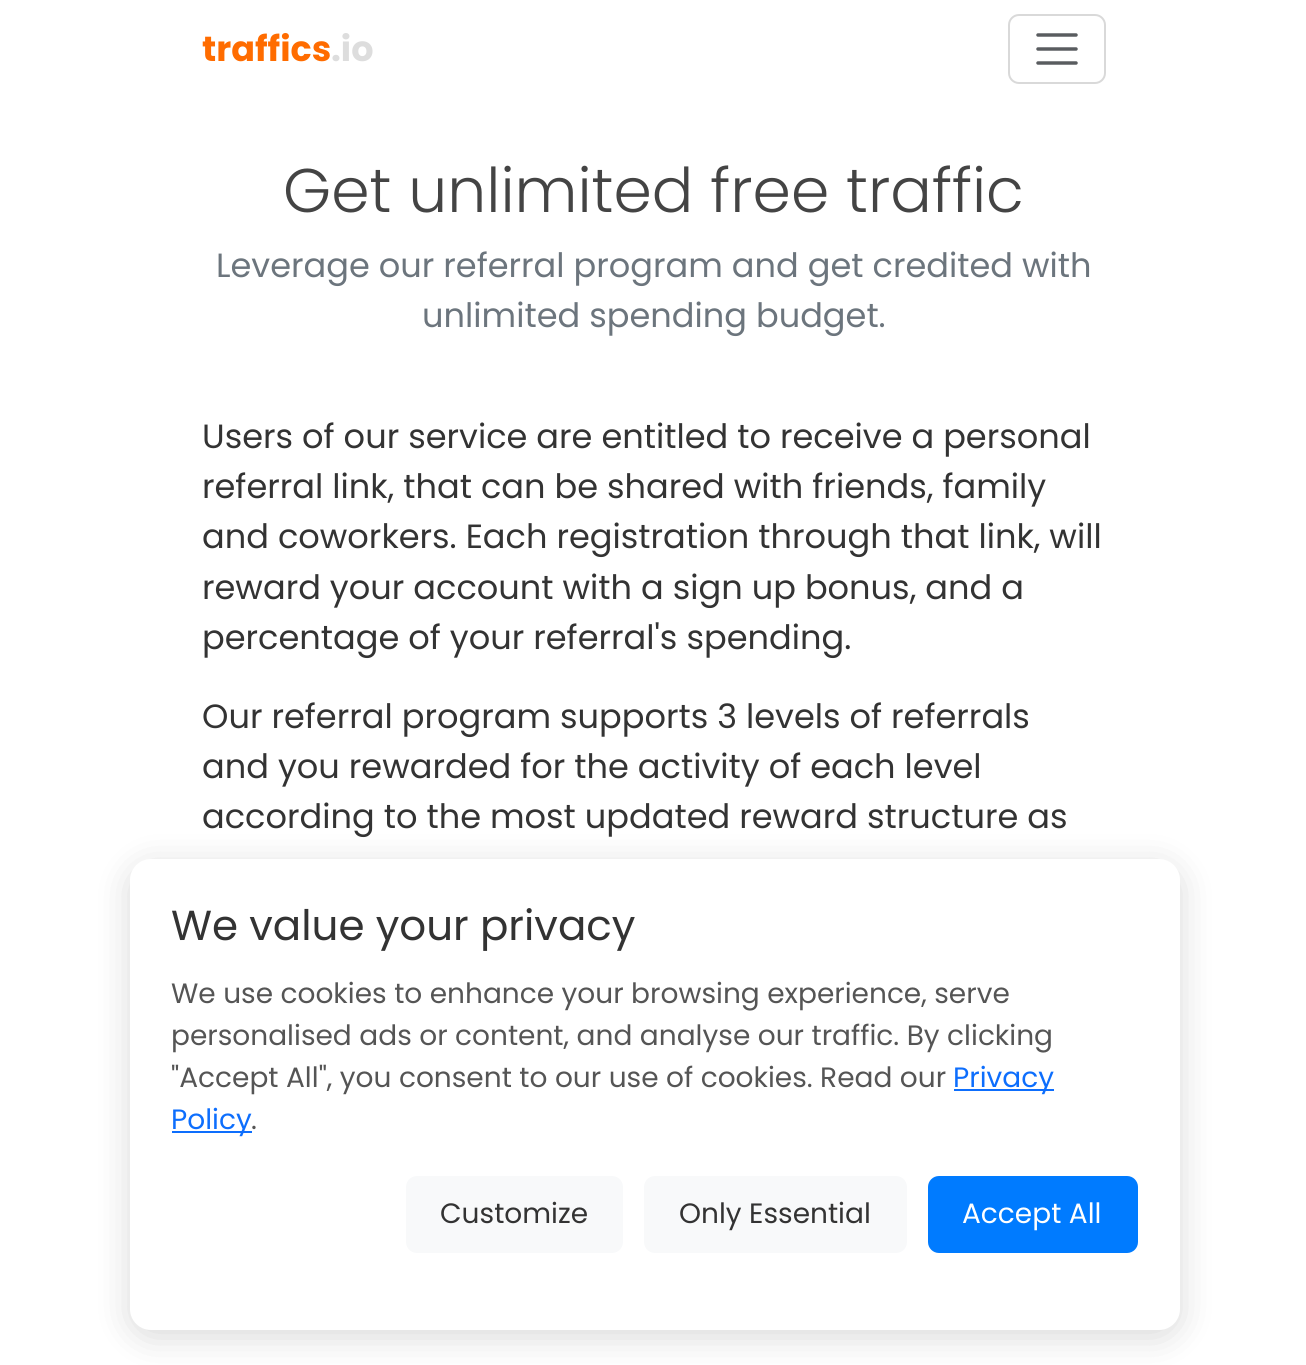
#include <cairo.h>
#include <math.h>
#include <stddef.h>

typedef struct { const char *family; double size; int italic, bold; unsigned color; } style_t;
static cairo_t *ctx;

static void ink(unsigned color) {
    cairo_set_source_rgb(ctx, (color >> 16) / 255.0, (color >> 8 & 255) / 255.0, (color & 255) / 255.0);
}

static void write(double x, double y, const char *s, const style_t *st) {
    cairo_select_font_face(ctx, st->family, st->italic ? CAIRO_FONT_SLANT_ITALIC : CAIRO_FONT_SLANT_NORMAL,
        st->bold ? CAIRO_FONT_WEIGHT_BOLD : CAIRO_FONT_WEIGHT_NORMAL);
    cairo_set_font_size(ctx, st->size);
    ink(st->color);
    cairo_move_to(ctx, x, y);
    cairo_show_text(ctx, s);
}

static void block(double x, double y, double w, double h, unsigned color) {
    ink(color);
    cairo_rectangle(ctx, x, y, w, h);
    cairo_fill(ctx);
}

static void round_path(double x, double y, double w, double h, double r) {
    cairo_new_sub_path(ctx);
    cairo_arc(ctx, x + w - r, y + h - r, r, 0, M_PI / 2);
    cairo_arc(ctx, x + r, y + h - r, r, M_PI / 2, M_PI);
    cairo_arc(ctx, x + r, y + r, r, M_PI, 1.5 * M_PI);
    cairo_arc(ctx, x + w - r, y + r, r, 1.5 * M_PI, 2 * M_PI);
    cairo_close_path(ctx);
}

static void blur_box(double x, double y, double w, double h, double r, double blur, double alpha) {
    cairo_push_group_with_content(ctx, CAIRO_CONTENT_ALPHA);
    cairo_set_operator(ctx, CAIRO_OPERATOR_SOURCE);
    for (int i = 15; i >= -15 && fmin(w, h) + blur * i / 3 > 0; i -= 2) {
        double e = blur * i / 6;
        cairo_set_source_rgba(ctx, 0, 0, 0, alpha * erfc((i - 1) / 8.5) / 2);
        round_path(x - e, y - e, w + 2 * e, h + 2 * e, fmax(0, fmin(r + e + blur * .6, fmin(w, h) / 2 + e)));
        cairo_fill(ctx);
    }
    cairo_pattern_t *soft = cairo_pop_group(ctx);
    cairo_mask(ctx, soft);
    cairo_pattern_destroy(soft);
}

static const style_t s1 = {"Poppins", 35, 0, 1, 0xff6c00};
static const style_t s2 = {"Poppins", 35, 0, 1, 0xdddddd};
static const style_t s3 = {"Poppins Light", 61.6, 0, 0, 0x444444};
static const style_t s4 = {"Poppins", 33.6, 0, 0, 0x6c757d};
static const style_t s5 = {"Poppins", 33.6, 0, 0, 0x333333};
static const style_t s6 = {"Poppins", 42, 0, 0, 0x333333};
static const style_t s7 = {"Poppins", 28, 0, 0, 0x555555};
static const style_t s8 = {"Poppins", 28, 0, 0, 0x0d6efd};
static const style_t s9 = {"Poppins", 28, 0, 0, 0x333333};
static const style_t s10 = {"Poppins", 28, 0, 0, 0xffffff};

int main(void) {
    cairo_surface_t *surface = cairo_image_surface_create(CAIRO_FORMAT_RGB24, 1306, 1365);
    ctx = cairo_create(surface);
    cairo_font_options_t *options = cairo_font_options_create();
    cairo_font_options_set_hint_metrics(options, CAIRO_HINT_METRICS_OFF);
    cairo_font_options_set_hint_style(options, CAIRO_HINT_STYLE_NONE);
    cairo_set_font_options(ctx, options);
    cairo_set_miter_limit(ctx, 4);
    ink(0xffffff);
    cairo_paint(ctx);
    write(202, 61, "traffics", &s1);
    write(331, 61, ".io", &s2);
    round_path(1009, 15, 96, 68, 10);
    ink(0xd9d9d9);
    cairo_stroke(ctx);
    cairo_new_path(ctx);
    cairo_move_to(ctx, 1038, 35);
    cairo_line_to(ctx, 1076, 35);
    cairo_move_to(ctx, 1038, 49);
    cairo_line_to(ctx, 1076, 49);
    cairo_move_to(ctx, 1038, 63);
    cairo_line_to(ctx, 1076, 63);
    ink(0x595c5f);
    cairo_set_line_width(ctx, 3.5);
    cairo_set_line_cap(ctx, CAIRO_LINE_CAP_ROUND);
    cairo_stroke(ctx);
    write(283, 212, "Get unlimited free traffic", &s3);
    write(216, 277, "Leverage our referral program and get credited with", &s4);
    write(422, 327, "unlimited spending budget.", &s4);
    write(202, 448, "Users of our service are entitled to receive a personal", &s5);
    write(202, 498, "referral link, that can be shared with friends, family", &s5);
    write(202, 548, "and coworkers. Each registration through that link, will", &s5);
    write(202, 599, "reward your account with a sign up bonus, and a", &s5);
    write(202, 649, "percentage of your referral's spending.", &s5);
    write(202, 728, "Our referral program supports 3 levels of referrals", &s5);
    write(202, 778, "and you rewarded for the activity of each level", &s5);
    write(202, 828, "according to the most updated reward structure as", &s5);
    ink(0x000000);
    blur_box(130, 866, 1050, 471, 21, 17.5, 0.15);
    ink(0xffffff);
    round_path(130, 859, 1050, 471, 21);
    cairo_fill(ctx);
    write(171, 940, "We value your privacy", &s6);
    write(171, 1003, "We use cookies to enhance your browsing experience, serve", &s7);
    write(171, 1045, "personalised ads or content, and analyse our traffic. By clicking", &s7);
    write(171, 1087, "\"Accept All\", you consent to our use of cookies. Read our", &s7);
    block(954, 1089, 100, 2, 0x0d6efd);
    write(953, 1087, "Privacy", &s8);
    block(172, 1131, 80, 2, 0x0d6efd);
    write(171, 1129, "Policy", &s8);
    write(251, 1129, ".", &s7);
    ink(0xf8f9fa);
    round_path(406, 1176, 217, 77, 11);
    cairo_fill(ctx);
    write(440, 1223, "Customize", &s9);
    ink(0xf8f9fa);
    round_path(644, 1176, 263, 77, 11);
    cairo_fill(ctx);
    write(679, 1223, "Only Essential", &s9);
    ink(0x007bff);
    round_path(928, 1176, 210, 77, 11);
    cairo_fill(ctx);
    write(962, 1223, "Accept All", &s10);
    cairo_surface_write_to_png(surface, "screenshot.png");
    cairo_font_options_destroy(options);
    cairo_destroy(ctx);
    cairo_surface_destroy(surface);
    return 0;
}
